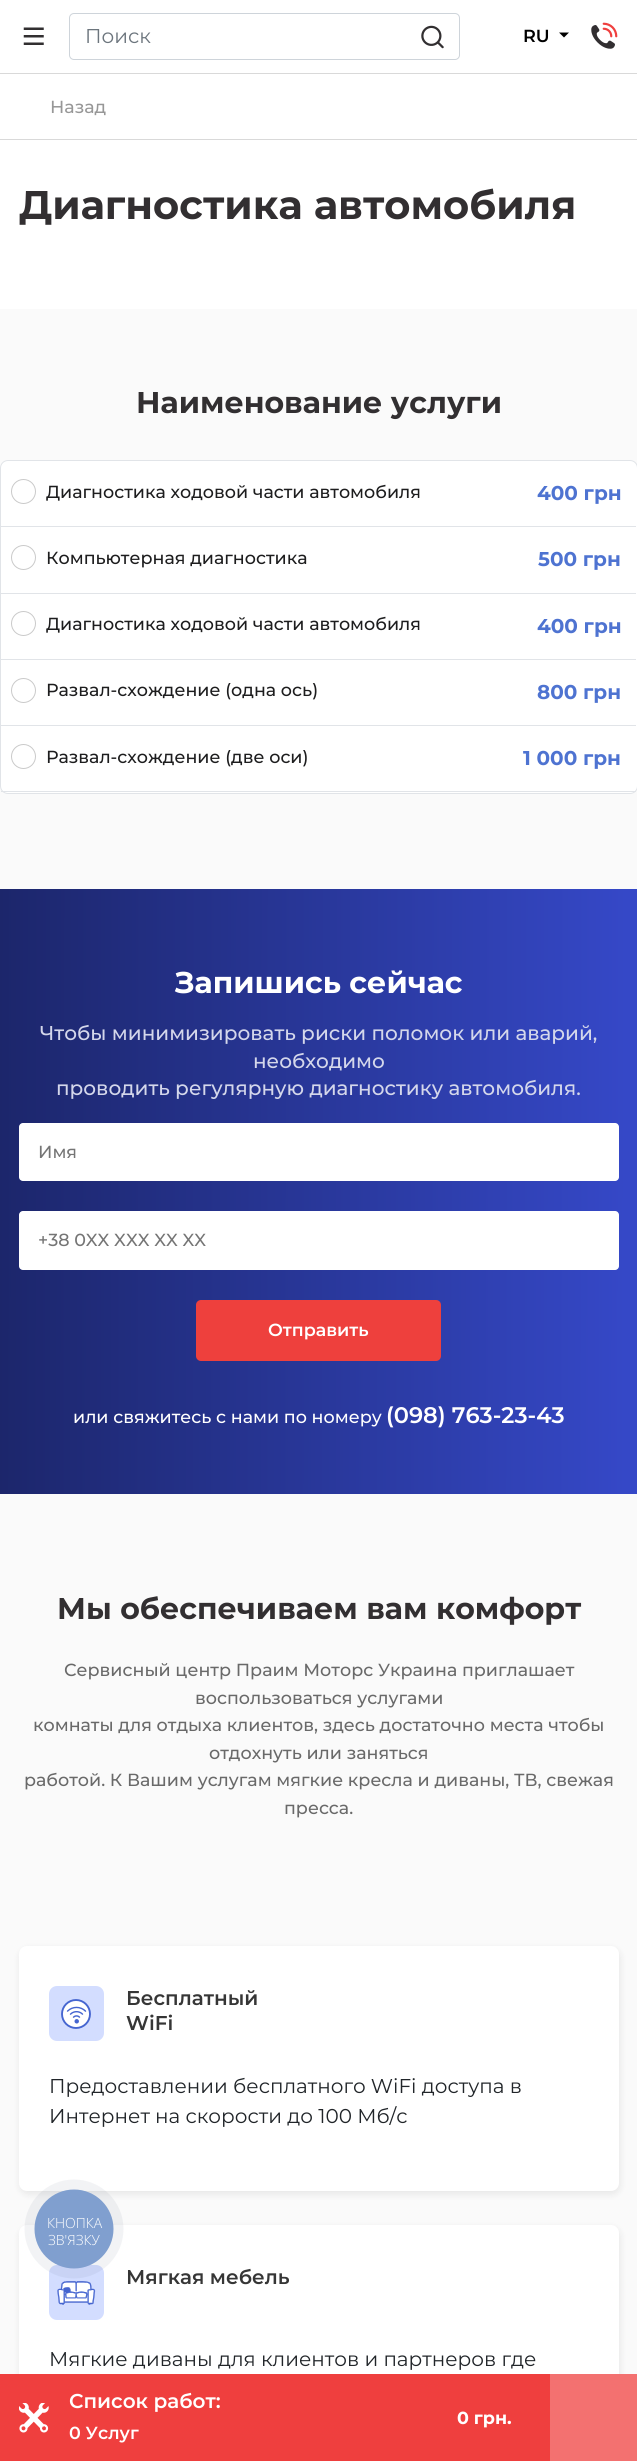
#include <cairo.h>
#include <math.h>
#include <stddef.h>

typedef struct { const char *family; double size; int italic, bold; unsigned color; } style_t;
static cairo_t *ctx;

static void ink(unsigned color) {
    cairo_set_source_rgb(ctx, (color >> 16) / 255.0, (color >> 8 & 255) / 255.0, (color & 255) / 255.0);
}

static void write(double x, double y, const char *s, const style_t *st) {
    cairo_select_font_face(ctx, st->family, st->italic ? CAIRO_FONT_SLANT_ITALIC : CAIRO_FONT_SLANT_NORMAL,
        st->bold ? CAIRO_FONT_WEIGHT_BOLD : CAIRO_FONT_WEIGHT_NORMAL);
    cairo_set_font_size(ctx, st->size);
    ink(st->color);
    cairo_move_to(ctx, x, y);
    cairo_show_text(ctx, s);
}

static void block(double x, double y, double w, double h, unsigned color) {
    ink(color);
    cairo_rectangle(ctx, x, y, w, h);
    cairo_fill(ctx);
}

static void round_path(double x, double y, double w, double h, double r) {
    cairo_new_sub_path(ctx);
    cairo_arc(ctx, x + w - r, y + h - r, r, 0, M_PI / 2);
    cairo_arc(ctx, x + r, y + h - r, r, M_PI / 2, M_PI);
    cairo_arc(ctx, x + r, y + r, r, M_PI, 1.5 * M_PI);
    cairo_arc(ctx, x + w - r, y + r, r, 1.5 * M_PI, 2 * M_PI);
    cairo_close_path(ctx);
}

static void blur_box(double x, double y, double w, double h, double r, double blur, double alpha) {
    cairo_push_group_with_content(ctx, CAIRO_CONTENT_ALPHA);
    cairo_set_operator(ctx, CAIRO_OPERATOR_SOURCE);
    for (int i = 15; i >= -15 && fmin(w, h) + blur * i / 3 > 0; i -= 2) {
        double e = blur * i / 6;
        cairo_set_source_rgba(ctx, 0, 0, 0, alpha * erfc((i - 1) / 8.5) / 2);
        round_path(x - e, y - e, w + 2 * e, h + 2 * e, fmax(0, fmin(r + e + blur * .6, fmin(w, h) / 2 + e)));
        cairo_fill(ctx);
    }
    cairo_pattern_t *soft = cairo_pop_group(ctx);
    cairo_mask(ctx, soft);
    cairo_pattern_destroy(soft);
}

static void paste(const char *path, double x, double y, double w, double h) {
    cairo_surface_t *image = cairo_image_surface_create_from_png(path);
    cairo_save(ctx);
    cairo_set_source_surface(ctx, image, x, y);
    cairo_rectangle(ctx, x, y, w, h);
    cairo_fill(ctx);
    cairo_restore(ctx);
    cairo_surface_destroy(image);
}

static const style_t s1 = {"Montserrat", 20, 0, 0, 0x6c757d};
static const style_t s2 = {"Montserrat SemiBold", 17.5, 0, 0, 0x000000};
static const style_t s3 = {"Montserrat Medium", 17.5, 0, 0, 0x979797};
static const style_t s4 = {"Montserrat", 40, 0, 1, 0x322f31};
static const style_t s5 = {"Montserrat", 30, 0, 1, 0x322f31};
static const style_t s6 = {"Montserrat Medium", 17.5, 0, 0, 0x1d1d1e};
static const style_t s7 = {"Montserrat", 20, 0, 1, 0x4e73d1};
static const style_t s8 = {"Montserrat", 30, 0, 1, 0xffffff};
static const style_t s9 = {"Montserrat Medium", 20, 0, 0, 0xd4d7eb};
static const style_t s10 = {"Montserrat Medium", 17.5, 0, 0, 0x757575};
static const style_t s11 = {"Montserrat SemiBold", 17.5, 0, 0, 0xffffff};
static const style_t s12 = {"Montserrat Medium", 17.5, 0, 0, 0xffffff};
static const style_t s13 = {"Montserrat SemiBold", 22.5, 0, 0, 0xffffff};
static const style_t s14 = {"Montserrat Medium", 17.5, 0, 0, 0x696969};
static const style_t s15 = {"Montserrat SemiBold", 20, 0, 0, 0x363636};
static const style_t s16 = {"Montserrat", 20, 0, 0, 0x212529};
static const style_t s17 = {"Open Sans Light", 14, 0, 0, 0xffffff};
static const style_t s18 = {"Montserrat SemiBold", 20, 0, 0, 0xffffff};
static const style_t s19 = {"Montserrat", 17.5, 0, 1, 0xffffff};

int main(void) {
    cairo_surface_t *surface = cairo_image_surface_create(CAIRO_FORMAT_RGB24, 637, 2461);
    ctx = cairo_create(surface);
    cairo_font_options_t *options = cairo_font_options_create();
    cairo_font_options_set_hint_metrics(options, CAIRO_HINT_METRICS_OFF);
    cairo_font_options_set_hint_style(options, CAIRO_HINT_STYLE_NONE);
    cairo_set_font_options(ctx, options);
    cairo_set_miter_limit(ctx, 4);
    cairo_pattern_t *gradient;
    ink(0xffffff);
    cairo_paint(ctx);
    block(0, 73, 637, 1, 0xd9d9d9);
    paste("pic1.png", 23, 27, 21, 18);
    round_path(69.5, 13.5, 390, 46, 4.5);
    ink(0xced4da);
    cairo_set_line_width(ctx, 1);
    cairo_stroke(ctx);
    write(85, 43, "Поиск", &s1);
    paste("pic2.png", 421, 25, 23, 24);
    write(523, 42, "RU", &s2);
    cairo_new_path(ctx);
    cairo_move_to(ctx, 559, 32.5);
    cairo_line_to(ctx, 569, 32.5);
    cairo_line_to(ctx, 564, 37.5);
    cairo_close_path(ctx);
    cairo_fill(ctx);
    paste("pic3.png", 591, 22, 27, 27);
    block(0, 139, 637, 1, 0xd9d9d9);
    write(50, 113, "Назад", &s3);
    write(19, 219, "Диагностика автомобиля", &s4);
    block(0, 309, 637, 580, 0xfafafa);
    write(136, 413, "Наименование услуги", &s5);
    ink(0xffffff);
    round_path(0.5, 460.5, 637, 333, 7.5);
    cairo_fill_preserve(ctx);
    ink(0xe1e4e8);
    cairo_stroke(ctx);
    block(1, 526, 635, 1, 0xe1e4e8);
    cairo_arc(ctx, 23.5, 491.5, 12, 0, 2 * M_PI);
    ink(0xcacaca);
    cairo_stroke(ctx);
    write(46, 498, "Диагностика ходовой части автомобиля", &s6);
    write(537, 500, "400 грн", &s7);
    block(1, 593, 635, 1, 0xe1e4e8);
    cairo_new_path(ctx);
    cairo_arc(ctx, 23.5, 557.5, 12, 0, 2 * M_PI);
    ink(0xcacaca);
    cairo_stroke(ctx);
    write(46, 564, "Компьютерная диагностика", &s6);
    write(538, 566, "500 грн", &s7);
    block(1, 659, 635, 1, 0xe1e4e8);
    cairo_new_path(ctx);
    cairo_arc(ctx, 23.5, 623.5, 12, 0, 2 * M_PI);
    ink(0xcacaca);
    cairo_stroke(ctx);
    write(46, 630, "Диагностика ходовой части автомобиля", &s6);
    write(537, 633, "400 грн", &s7);
    block(1, 725, 635, 1, 0xe1e4e8);
    cairo_new_path(ctx);
    cairo_arc(ctx, 23.5, 690.5, 12, 0, 2 * M_PI);
    ink(0xcacaca);
    cairo_stroke(ctx);
    write(46, 696, "Развал-схождение (одна ось)", &s6);
    write(537, 699, "800 грн", &s7);
    block(1, 791, 635, 1, 0xe1e4e8);
    cairo_new_path(ctx);
    cairo_arc(ctx, 23.5, 756.5, 12, 0, 2 * M_PI);
    ink(0xcacaca);
    cairo_stroke(ctx);
    write(46, 763, "Развал-схождение (две оси)", &s6);
    write(523, 765, "1 000 грн", &s7);
    gradient = cairo_pattern_create_linear(-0.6, 1191, 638, 1192);
    cairo_pattern_add_color_stop_rgba(gradient, 0, 0.11, 0.149, 0.42, 1);
    cairo_pattern_add_color_stop_rgba(gradient, 0.98, 0.208, 0.282, 0.78, 1);
    cairo_set_source(ctx, gradient);
    cairo_pattern_destroy(gradient);
    cairo_rectangle(ctx, 0, 889, 637, 605);
    cairo_fill(ctx);
    write(175, 993, "Запишись сейчас", &s8);
    write(40, 1040, "Чтобы минимизировать риски поломок или аварий,", &s9);
    write(253, 1068, "необходимо", &s9);
    write(56, 1095, "проводить регулярную диагностику автомобиля.", &s9);
    ink(0xffffff);
    round_path(19, 1123, 600, 58, 4);
    cairo_fill(ctx);
    write(38, 1158, "Имя", &s10);
    ink(0xffffff);
    round_path(19, 1211, 600, 59, 4);
    cairo_fill(ctx);
    write(38, 1246, "+38 0XX XXX XX XX", &s10);
    ink(0xee403d);
    round_path(196, 1300, 245, 61, 5);
    cairo_fill(ctx);
    write(268, 1336, "Отправить", &s11);
    write(73, 1423, "или свяжитесь с нами по номеру", &s12);
    write(386, 1423, "(098) 763-23-43", &s13);
    block(0, 1494, 637, 880, 0xfafafa);
    write(57, 1619, "Мы обеспечиваем вам комфорт", &s5);
    write(64, 1676, "Сервисный центр Праим Моторс Украина приглашает", &s14);
    write(195, 1704, "воспользоваться услугами", &s14);
    write(33, 1731, "комнаты для отдыха клиентов, здесь достаточно места чтобы", &s14);
    write(209, 1759, "отдохнуть или заняться", &s14);
    write(24, 1786, "работой. К Вашим услугам мягкие кресла и диваны, ТВ, свежая", &s14);
    write(284, 1814, "пресса.", &s14);
    ink(0x000000);
    blur_box(20, 1949, 600, 245, 8, 4, 0.08);
    ink(0xffffff);
    round_path(19, 1946, 600, 245, 8);
    cairo_fill(ctx);
    ink(0xd3ddff);
    round_path(49, 1986, 55, 55, 8);
    cairo_fill(ctx);
    paste("pic4.png", 61, 1999, 30, 30);
    write(126, 2005, "Бесплатный", &s15);
    write(126, 2030, "WiFi", &s15);
    write(49, 2093, "Предоставлении бесплатного WiFi доступа в", &s16);
    write(49, 2123, "Интернет на скорости до 100 Мб/с", &s16);
    ink(0x000000);
    blur_box(20, 2228, 600, 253, 8, 4, 0.08);
    ink(0xffffff);
    round_path(19, 2225, 600, 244, 8);
    cairo_fill(ctx);
    ink(0xd3ddff);
    round_path(49, 2265, 55, 55, 8);
    cairo_fill(ctx);
    paste("pic5.png", 57, 2281, 39, 24);
    write(126, 2284, "Мягкая мебель", &s15);
    write(49, 2366, "Мягкие диваны для клиентов и партнеров где", &s16);
    cairo_set_source_rgba(ctx, 0.165, 0.251, 0.365, 0.06);
    cairo_new_path(ctx);
    cairo_arc(ctx, 74, 2229, 49.5, 0, 2 * M_PI);
    cairo_fill(ctx);
    ink(0x809fcf);
    cairo_arc(ctx, 74, 2229, 39.5, 0, 2 * M_PI);
    cairo_fill(ctx);
    write(47, 2228, "КНОПКА", &s17);
    write(48, 2245, "ЗВ'ЯЗКУ", &s17);
    block(0, 2374, 550, 87, 0xef3f3e);
    paste("pic6.png", 19, 2403, 30, 30);
    write(69, 2408, "Список работ:", &s18);
    write(69, 2439, "0 Услуг", &s11);
    write(457, 2424, "0 грн.", &s19);
    block(550, 2374, 87, 87, 0xf37170);
    cairo_surface_write_to_png(surface, "screenshot.png");
    cairo_font_options_destroy(options);
    cairo_destroy(ctx);
    cairo_surface_destroy(surface);
    return 0;
}
